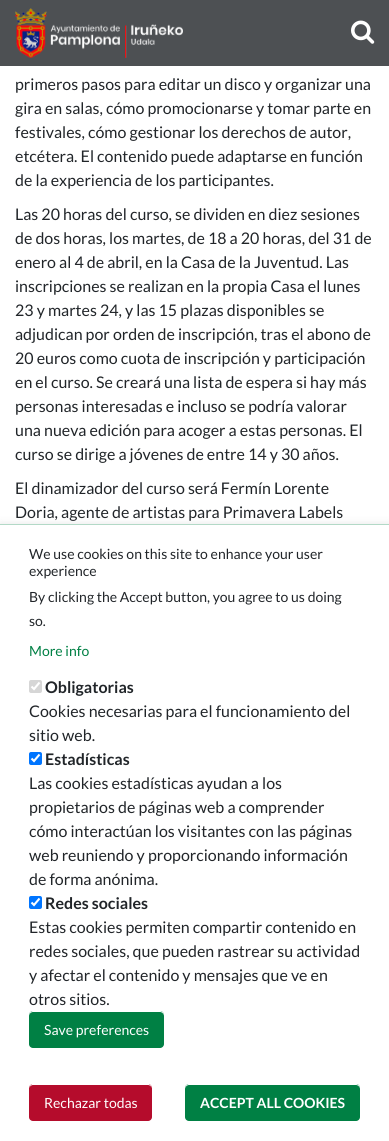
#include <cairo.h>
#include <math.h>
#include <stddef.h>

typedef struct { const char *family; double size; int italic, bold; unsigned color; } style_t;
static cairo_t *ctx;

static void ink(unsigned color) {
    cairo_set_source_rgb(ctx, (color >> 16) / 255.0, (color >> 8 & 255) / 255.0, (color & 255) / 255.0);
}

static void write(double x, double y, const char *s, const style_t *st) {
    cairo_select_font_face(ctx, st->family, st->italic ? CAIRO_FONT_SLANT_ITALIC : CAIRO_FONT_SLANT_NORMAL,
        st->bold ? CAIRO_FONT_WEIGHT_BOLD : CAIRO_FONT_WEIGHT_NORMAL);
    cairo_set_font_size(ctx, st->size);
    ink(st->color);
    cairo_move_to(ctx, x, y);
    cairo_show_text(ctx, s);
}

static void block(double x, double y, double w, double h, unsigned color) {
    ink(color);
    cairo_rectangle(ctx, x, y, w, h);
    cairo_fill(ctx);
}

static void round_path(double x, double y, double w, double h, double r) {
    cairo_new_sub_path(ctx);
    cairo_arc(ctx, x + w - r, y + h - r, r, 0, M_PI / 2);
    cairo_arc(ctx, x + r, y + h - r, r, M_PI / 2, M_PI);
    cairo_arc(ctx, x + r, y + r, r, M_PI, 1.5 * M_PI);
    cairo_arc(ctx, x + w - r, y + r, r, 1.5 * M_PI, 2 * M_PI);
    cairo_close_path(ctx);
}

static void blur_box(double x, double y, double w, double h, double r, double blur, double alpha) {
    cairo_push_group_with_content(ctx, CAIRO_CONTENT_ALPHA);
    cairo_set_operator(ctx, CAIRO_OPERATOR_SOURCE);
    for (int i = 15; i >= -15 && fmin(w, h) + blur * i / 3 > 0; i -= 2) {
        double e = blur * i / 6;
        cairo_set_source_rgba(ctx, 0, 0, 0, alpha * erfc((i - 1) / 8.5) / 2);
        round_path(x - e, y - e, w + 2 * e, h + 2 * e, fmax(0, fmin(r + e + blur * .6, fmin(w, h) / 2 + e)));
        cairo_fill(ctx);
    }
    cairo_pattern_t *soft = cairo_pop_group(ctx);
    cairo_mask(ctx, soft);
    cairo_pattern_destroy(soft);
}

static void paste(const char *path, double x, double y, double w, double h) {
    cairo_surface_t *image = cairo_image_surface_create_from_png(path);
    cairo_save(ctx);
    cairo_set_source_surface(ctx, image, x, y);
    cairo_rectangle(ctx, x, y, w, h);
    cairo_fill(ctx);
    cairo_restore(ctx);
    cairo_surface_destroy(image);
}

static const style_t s1 = {"Lato", 16, 0, 0, 0x212529};
static const style_t s2 = {"Lato", 14, 0, 0, 0x212529};
static const style_t s3 = {"Lato", 14, 0, 0, 0x008044};
static const style_t s4 = {"Lato", 16, 0, 1, 0x212529};
static const style_t s5 = {"Lato", 14, 0, 0, 0xffffff};
static const style_t s6 = {"Lato", 14, 0, 1, 0xffffff};

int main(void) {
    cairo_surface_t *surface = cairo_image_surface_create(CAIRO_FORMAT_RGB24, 389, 1141);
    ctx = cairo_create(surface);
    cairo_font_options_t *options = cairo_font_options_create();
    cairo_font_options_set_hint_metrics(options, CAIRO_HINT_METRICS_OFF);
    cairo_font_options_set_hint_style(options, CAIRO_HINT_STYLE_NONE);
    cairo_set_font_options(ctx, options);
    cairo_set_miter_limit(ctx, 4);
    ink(0xffffff);
    cairo_paint(ctx);
    cairo_set_source_rgba(ctx, 0.129, 0.145, 0.161, 0.8);
    cairo_rectangle(ctx, 0, 0, 389, 66);
    cairo_fill(ctx);
    paste("pic1.png", 15, 8, 168, 50);
    paste("pic2.png", 351, 20, 24, 24);
    write(15, 90, "primeros pasos para editar un disco y organizar una", &s1);
    write(15, 114, "gira en salas, cómo promocionarse y tomar parte en", &s1);
    write(15, 138, "festivales, cómo gestionar los derechos de autor,", &s1);
    write(15, 162, "etcétera. El contenido puede adaptarse en función", &s1);
    write(15, 186, "de la experiencia de los participantes.", &s1);
    write(15, 220, "Las 20 horas del curso, se dividen en diez sesiones", &s1);
    write(15, 244, "de dos horas, los martes, de 18 a 20 horas, del 31 de", &s1);
    write(15, 268, "enero al 4 de abril, en la Casa de la Juventud. Las", &s1);
    write(15, 292, "inscripciones se realizan en la propia Casa el lunes", &s1);
    write(15, 316, "23 y martes 24, y las 15 plazas disponibles se", &s1);
    write(15, 340, "adjudican por orden de inscripción, tras el abono de", &s1);
    write(15, 364, "20 euros como cuota de inscripción y participación", &s1);
    write(15, 388, "en el curso. Se creará una lista de espera si hay más", &s1);
    write(15, 412, "personas interesadas e incluso se podría valorar", &s1);
    write(15, 436, "una nueva edición para acoger a estas personas. El", &s1);
    write(15, 460, "curso se dirige a jóvenes de entre 14 y 30 años.", &s1);
    write(15, 494, "El dinamizador del curso será Fermín Lorente", &s1);
    write(15, 518, "Doria, agente de artistas para Primavera Labels", &s1);
    ink(0x000000);
    blur_box(0, 525, 389, 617, 0, 5, 0.12);
    block(0, 525, 389, 616, 0xffffff);
    block(0, 524, 389, 1, 0xb3d9c7);
    write(29, 559, "We use cookies on this site to enhance your user", &s2);
    write(29, 576, "experience", &s2);
    write(29, 602, "By clicking the Accept button, you agree to us doing", &s2);
    write(29, 626, "so.", &s2);
    write(29, 656, "More info", &s3);
    ink(0xd6d6d6);
    round_path(29, 680, 13, 13, 2);
    cairo_fill(ctx);
    cairo_new_path(ctx);
    cairo_move_to(ctx, 31.5, 686.5);
    cairo_line_to(ctx, 34, 689);
    cairo_line_to(ctx, 39.5, 682.5);
    ink(0xffffff);
    cairo_set_line_width(ctx, 2.1);
    cairo_stroke(ctx);
    write(45, 693, "Obligatorias", &s4);
    write(29, 717, "Cookies necesarias para el funcionamiento del", &s1);
    write(29, 741, "sitio web.", &s1);
    ink(0x0075ff);
    round_path(29, 752, 13, 13, 2);
    cairo_fill(ctx);
    cairo_new_path(ctx);
    cairo_move_to(ctx, 31.5, 758.5);
    cairo_line_to(ctx, 34, 761);
    cairo_line_to(ctx, 39.5, 754.5);
    ink(0xffffff);
    cairo_stroke(ctx);
    write(45, 765, "Estadísticas", &s4);
    write(29, 789, "Las cookies estadísticas ayudan a los", &s1);
    write(29, 813, "propietarios de páginas web a comprender", &s1);
    write(29, 837, "cómo interactúan los visitantes con las páginas", &s1);
    write(29, 861, "web reuniendo y proporcionando información", &s1);
    write(29, 885, "de forma anónima.", &s1);
    ink(0x0075ff);
    round_path(29, 896, 13, 13, 2);
    cairo_fill(ctx);
    cairo_new_path(ctx);
    cairo_move_to(ctx, 31.5, 902.5);
    cairo_line_to(ctx, 34, 905);
    cairo_line_to(ctx, 39.5, 898.5);
    ink(0xffffff);
    cairo_stroke(ctx);
    write(45, 909, "Redes sociales", &s4);
    write(29, 933, "Estas cookies permiten compartir contenido en", &s1);
    write(29, 957, "redes sociales, que pueden rastrear su actividad", &s1);
    write(29, 981, "y afectar el contenido y mensajes que ve en", &s1);
    write(29, 1005, "otros sitios.", &s1);
    ink(0x008044);
    round_path(29, 1011, 135, 37, 4);
    cairo_fill(ctx);
    ink(0xffffff);
    cairo_new_path(ctx);
    cairo_move_to(ctx, 33, 1012);
    cairo_line_to(ctx, 160, 1012);
    cairo_curve_to(ctx, 162, 1012, 164, 1014, 164, 1016);
    cairo_line_to(ctx, 164, 1015);
    cairo_curve_to(ctx, 164, 1013, 162, 1011, 160, 1011);
    cairo_line_to(ctx, 33, 1011);
    cairo_curve_to(ctx, 31, 1011, 29, 1013, 29, 1015);
    cairo_line_to(ctx, 29, 1016);
    cairo_curve_to(ctx, 29, 1014, 31, 1012, 33, 1012);
    cairo_close_path(ctx);
    cairo_fill(ctx);
    write(44, 1035, "Save preferences", &s5);
    ink(0xb50c2c);
    round_path(29, 1084, 123, 37, 4);
    cairo_fill(ctx);
    ink(0xffffff);
    cairo_new_path(ctx);
    cairo_move_to(ctx, 33, 1085);
    cairo_line_to(ctx, 148, 1085);
    cairo_curve_to(ctx, 150, 1085, 152, 1087, 152, 1089);
    cairo_curve_to(ctx, 152, 1079, 132, 1084, 129, 1084);
    cairo_line_to(ctx, 52, 1084);
    cairo_curve_to(ctx, 49, 1084, 29, 1079, 29, 1089);
    cairo_curve_to(ctx, 29, 1087, 31, 1085, 33, 1085);
    cairo_close_path(ctx);
    cairo_fill(ctx);
    write(44, 1108, "Rechazar todas", &s5);
    ink(0x008044);
    round_path(185, 1084, 175, 37, 4);
    cairo_fill(ctx);
    ink(0xffffff);
    cairo_new_path(ctx);
    cairo_move_to(ctx, 189, 1085);
    cairo_line_to(ctx, 356, 1085);
    cairo_curve_to(ctx, 358, 1085, 360, 1087, 360, 1089);
    cairo_line_to(ctx, 360, 1088);
    cairo_curve_to(ctx, 360, 1086, 358, 1084, 356, 1084);
    cairo_line_to(ctx, 189, 1084);
    cairo_curve_to(ctx, 187, 1084, 185, 1086, 185, 1088);
    cairo_line_to(ctx, 185, 1089);
    cairo_curve_to(ctx, 185, 1087, 187, 1085, 189, 1085);
    cairo_close_path(ctx);
    cairo_fill(ctx);
    write(200, 1108, "ACCEPT ALL COOKIES", &s6);
    cairo_surface_write_to_png(surface, "screenshot.png");
    cairo_font_options_destroy(options);
    cairo_destroy(ctx);
    cairo_surface_destroy(surface);
    return 0;
}
